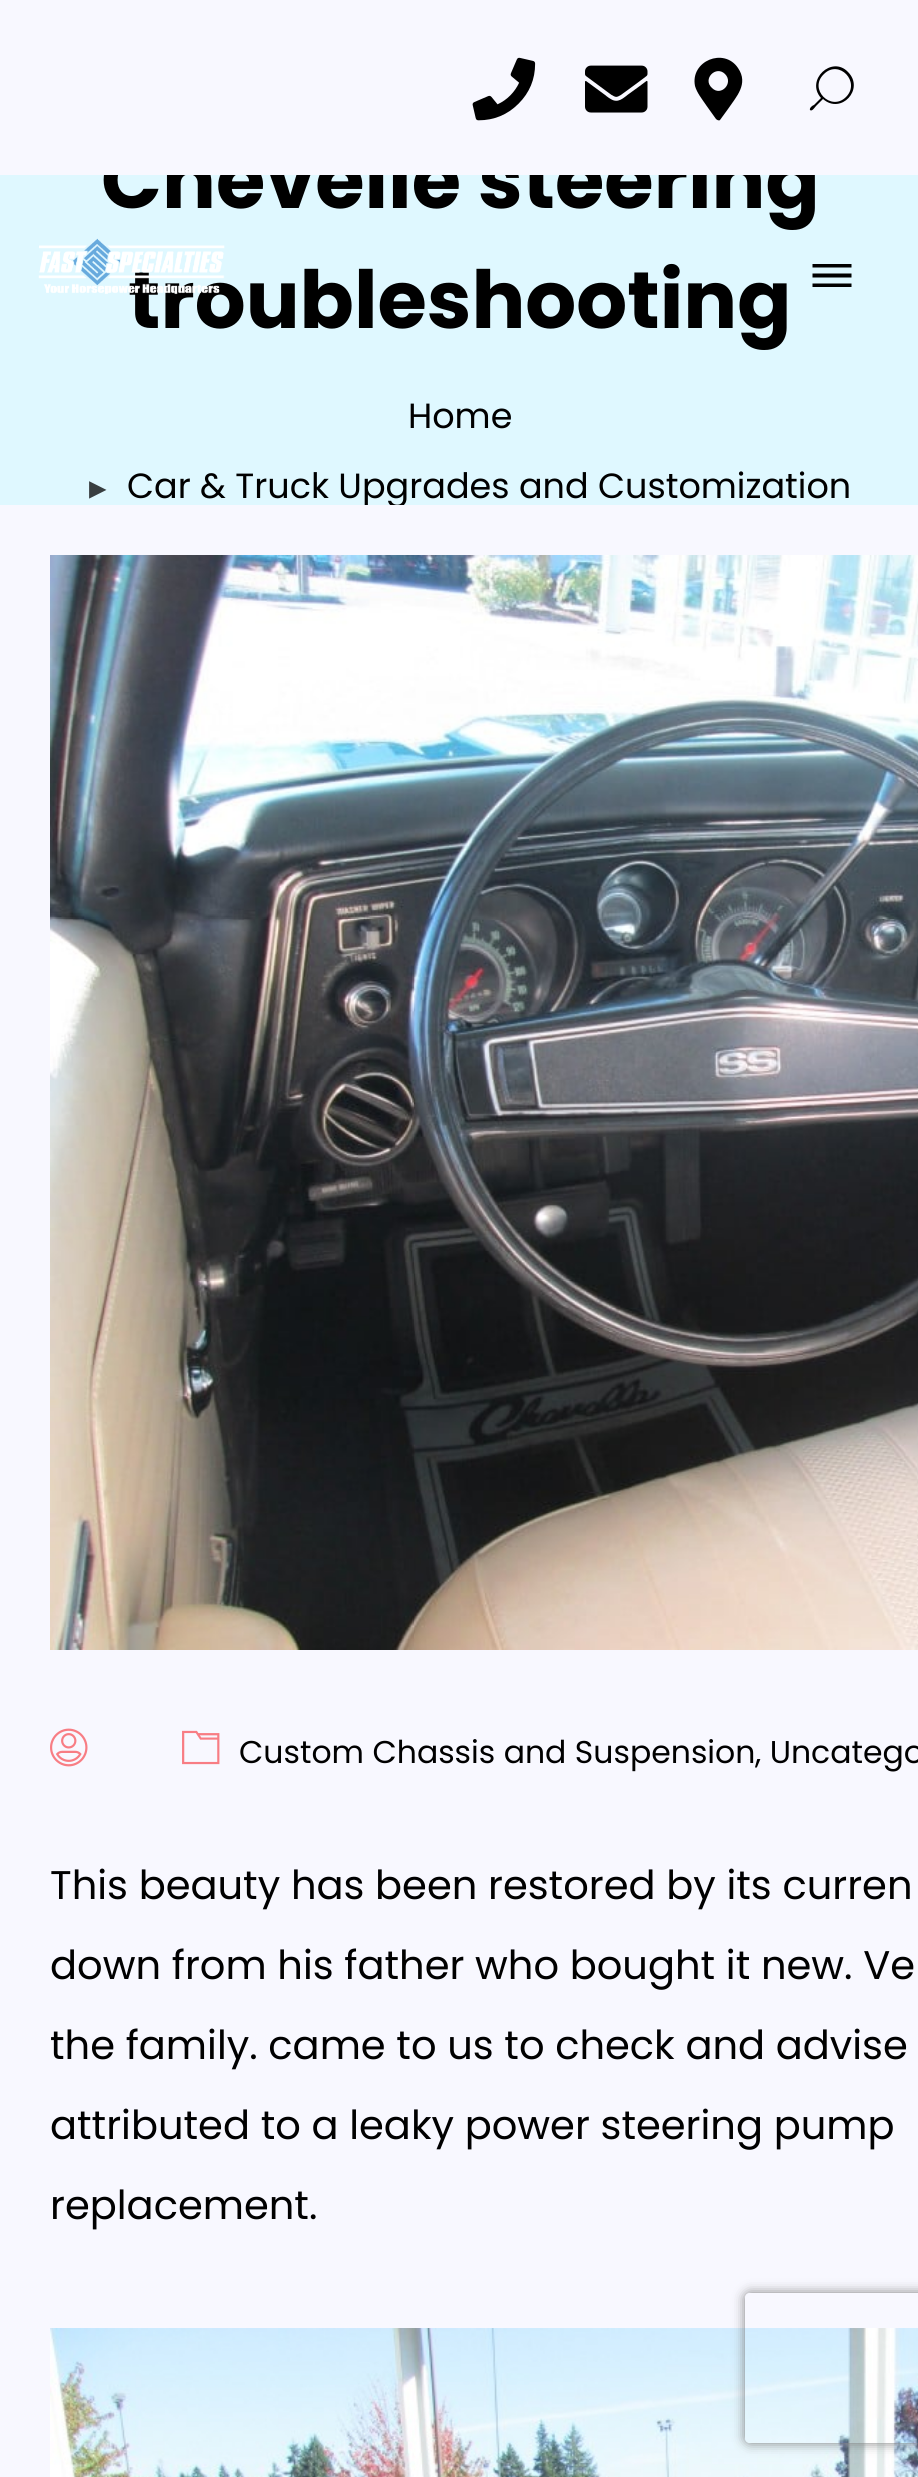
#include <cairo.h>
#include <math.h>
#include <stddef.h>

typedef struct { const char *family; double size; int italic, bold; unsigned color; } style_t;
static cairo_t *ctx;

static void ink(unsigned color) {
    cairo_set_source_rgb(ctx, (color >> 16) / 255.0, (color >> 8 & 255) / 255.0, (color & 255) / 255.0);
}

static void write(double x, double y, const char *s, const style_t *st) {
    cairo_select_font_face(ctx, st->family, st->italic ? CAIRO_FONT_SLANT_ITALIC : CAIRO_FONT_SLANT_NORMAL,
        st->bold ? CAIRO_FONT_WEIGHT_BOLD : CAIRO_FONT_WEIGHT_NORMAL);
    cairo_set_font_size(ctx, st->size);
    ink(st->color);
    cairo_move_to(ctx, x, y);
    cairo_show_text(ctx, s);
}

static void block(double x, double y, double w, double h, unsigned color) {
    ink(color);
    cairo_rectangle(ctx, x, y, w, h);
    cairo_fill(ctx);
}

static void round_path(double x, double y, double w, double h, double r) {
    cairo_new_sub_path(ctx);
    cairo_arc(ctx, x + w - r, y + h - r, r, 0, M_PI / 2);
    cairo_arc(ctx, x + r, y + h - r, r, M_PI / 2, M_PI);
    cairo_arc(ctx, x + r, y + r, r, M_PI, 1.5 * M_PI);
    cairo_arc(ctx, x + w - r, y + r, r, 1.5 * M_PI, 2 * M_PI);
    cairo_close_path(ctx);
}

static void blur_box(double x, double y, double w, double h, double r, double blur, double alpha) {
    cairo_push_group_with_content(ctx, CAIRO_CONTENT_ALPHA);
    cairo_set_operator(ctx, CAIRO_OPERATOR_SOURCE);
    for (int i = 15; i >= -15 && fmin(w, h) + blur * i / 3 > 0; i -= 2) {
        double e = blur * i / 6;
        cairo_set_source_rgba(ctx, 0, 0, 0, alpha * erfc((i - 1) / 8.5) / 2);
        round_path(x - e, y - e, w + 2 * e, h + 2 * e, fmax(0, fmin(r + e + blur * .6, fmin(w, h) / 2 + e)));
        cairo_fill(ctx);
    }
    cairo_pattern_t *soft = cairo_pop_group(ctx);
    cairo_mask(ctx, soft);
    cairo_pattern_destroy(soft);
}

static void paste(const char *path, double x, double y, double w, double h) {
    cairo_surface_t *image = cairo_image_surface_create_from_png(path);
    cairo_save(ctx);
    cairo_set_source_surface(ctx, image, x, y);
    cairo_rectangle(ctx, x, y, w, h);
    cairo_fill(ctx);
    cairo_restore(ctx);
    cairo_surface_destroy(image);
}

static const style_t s1 = {"Poppins", 80, 0, 1, 0x000000};
static const style_t s2 = {"Poppins", 35, 0, 0, 0x000000};
static const style_t s3 = {"DejaVu Sans", 35, 0, 0, 0x383e40};
static const style_t s4 = {"Poppins", 31.5, 0, 0, 0x000000};
static const style_t s5 = {"Poppins", 40, 0, 0, 0x000000};

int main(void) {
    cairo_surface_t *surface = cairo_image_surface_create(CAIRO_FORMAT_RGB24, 918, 2477);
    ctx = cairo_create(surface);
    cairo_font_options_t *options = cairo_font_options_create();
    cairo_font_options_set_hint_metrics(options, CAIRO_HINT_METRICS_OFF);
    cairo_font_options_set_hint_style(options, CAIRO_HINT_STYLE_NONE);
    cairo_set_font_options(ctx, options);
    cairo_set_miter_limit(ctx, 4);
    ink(0xdff8ff);
    cairo_paint(ctx);
    write(101, 208, "Chevelle steering", &s1);
    block(0, 0, 918, 175, 0xf8f8ff);
    paste("pic1.png", 472, 57, 64, 64);
    paste("pic2.png", 585, 65, 63, 48);
    ink(0x000000);
    cairo_new_path(ctx);
    cairo_move_to(ctx, 716, 119);
    cairo_line_to(ctx, 706, 105);
    cairo_curve_to(ctx, 702, 99, 697, 93, 695, 86);
    cairo_curve_to(ctx, 690, 61, 724, 47, 738, 68);
    cairo_curve_to(ctx, 749, 84, 736, 97, 728, 109);
    cairo_line_to(ctx, 720, 120);
    cairo_curve_to(ctx, 719, 121, 717, 120, 716, 119);
    cairo_close_path(ctx);
    cairo_move_to(ctx, 712, 88);
    cairo_curve_to(ctx, 721, 97, 734, 83, 725, 74);
    cairo_curve_to(ctx, 716, 65, 702, 79, 712, 88);
    cairo_close_path(ctx);
    cairo_fill(ctx);
    cairo_new_path(ctx);
    cairo_move_to(ctx, 848, 72);
    cairo_curve_to(ctx, 832, 55, 805, 80, 821, 98);
    cairo_line_to(ctx, 814, 105);
    cairo_curve_to(ctx, 813, 105, 809, 108, 810, 110);
    cairo_curve_to(ctx, 812, 112, 815, 107, 816, 106);
    cairo_line_to(ctx, 823, 99);
    cairo_curve_to(ctx, 841, 115, 865, 89, 848, 72);
    cairo_close_path(ctx);
    cairo_move_to(ctx, 846, 97);
    cairo_curve_to(ctx, 831, 112, 808, 89, 824, 74);
    cairo_curve_to(ctx, 839, 59, 861, 82, 846, 97);
    cairo_close_path(ctx);
    cairo_fill(ctx);
    write(128, 328, "troubleshooting", &s1);
    paste("pic3.png", 38, 238, 187, 57);
    cairo_new_path(ctx);
    cairo_move_to(ctx, 851.5, 273.5);
    cairo_line_to(ctx, 812.5, 273.5);
    cairo_line_to(ctx, 812.5, 277.5);
    cairo_line_to(ctx, 851.5, 277.5);
    cairo_close_path(ctx);
    cairo_move_to(ctx, 851.5, 283.5);
    cairo_line_to(ctx, 812.5, 283.5);
    cairo_line_to(ctx, 812.5, 287);
    cairo_line_to(ctx, 851.5, 287);
    cairo_close_path(ctx);
    cairo_move_to(ctx, 851.5, 264);
    cairo_line_to(ctx, 812.5, 264);
    cairo_line_to(ctx, 812.5, 267.5);
    cairo_line_to(ctx, 851.5, 267.5);
    cairo_close_path(ctx);
    cairo_fill(ctx);
    write(408, 428, "Home", &s2);
    write(89, 499, "▸", &s3);
    write(127, 498, "Car & Truck Upgrades and Customization", &s2);
    block(0, 505, 918, 1972, 0xf8f8ff);
    paste("pic4.png", 50, 555, 868, 1095);
    paste("pic5.png", 50, 1728, 38, 39);
    paste("pic6.png", 182, 1730, 38, 35);
    write(239, 1763, "Custom Chassis and Suspension", &s4);
    write(755, 1763, ", Uncatego", &s4);
    write(50, 1899, "This beauty has been restored by its curren", &s5);
    write(50, 1979, "down from his father who bought it new. Ve", &s5);
    write(50, 2059, "the family. came to us to check and advise", &s5);
    write(50, 2139, "attributed to a leaky power steering pump", &s5);
    write(50, 2219, "replacement.", &s5);
    paste("pic7.png", 50, 2328, 868, 149);
    cairo_save(ctx);
    cairo_set_fill_rule(ctx, CAIRO_FILL_RULE_EVEN_ODD);
    cairo_new_path(ctx);
    cairo_move_to(ctx, 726, 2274);
    cairo_line_to(ctx, 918, 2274);
    cairo_line_to(ctx, 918, 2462);
    cairo_line_to(ctx, 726, 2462);
    cairo_close_path(ctx);
    cairo_move_to(ctx, 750, 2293);
    cairo_line_to(ctx, 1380, 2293);
    cairo_curve_to(ctx, 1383, 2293, 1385, 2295, 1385, 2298);
    cairo_line_to(ctx, 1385, 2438);
    cairo_curve_to(ctx, 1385, 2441, 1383, 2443, 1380, 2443);
    cairo_line_to(ctx, 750, 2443);
    cairo_curve_to(ctx, 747, 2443, 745, 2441, 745, 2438);
    cairo_line_to(ctx, 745, 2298);
    cairo_curve_to(ctx, 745, 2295, 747, 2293, 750, 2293);
    cairo_close_path(ctx);
    cairo_clip(ctx);
    ink(0x808080);
    blur_box(745, 2293, 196, 150, 5, 6, 1);
    cairo_restore(ctx);
    cairo_surface_write_to_png(surface, "screenshot.png");
    cairo_font_options_destroy(options);
    cairo_destroy(ctx);
    cairo_surface_destroy(surface);
    return 0;
}
